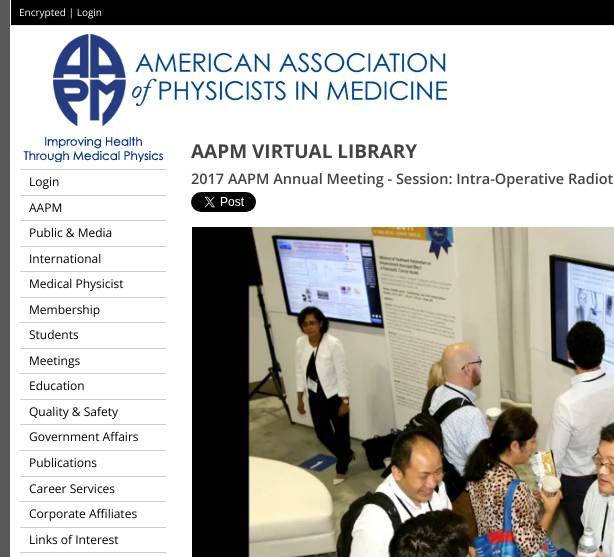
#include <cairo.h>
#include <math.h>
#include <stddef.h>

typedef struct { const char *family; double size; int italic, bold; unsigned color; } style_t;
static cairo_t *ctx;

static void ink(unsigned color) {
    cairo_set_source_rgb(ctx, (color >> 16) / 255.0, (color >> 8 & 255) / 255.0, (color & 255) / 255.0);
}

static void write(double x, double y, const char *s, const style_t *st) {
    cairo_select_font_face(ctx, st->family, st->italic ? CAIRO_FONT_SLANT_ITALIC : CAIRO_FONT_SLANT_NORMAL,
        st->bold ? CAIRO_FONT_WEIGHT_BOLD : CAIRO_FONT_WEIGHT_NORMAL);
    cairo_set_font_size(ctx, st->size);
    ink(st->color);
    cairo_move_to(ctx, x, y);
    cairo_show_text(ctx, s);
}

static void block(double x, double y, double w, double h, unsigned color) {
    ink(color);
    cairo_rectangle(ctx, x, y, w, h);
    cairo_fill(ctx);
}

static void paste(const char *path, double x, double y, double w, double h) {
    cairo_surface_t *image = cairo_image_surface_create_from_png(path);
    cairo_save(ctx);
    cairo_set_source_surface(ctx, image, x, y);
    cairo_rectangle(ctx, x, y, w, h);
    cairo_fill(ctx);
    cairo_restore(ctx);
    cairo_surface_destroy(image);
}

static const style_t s1 = {"Open Sans", 10, 0, 0, 0xffffff};
static const style_t s2 = {"Open Sans", 19, 0, 1, 0x434343};
static const style_t s3 = {"Open Sans", 12, 0, 0, 0x000000};
static const style_t s4 = {"Open Sans SemiBold", 14.5, 0, 0, 0x434343};

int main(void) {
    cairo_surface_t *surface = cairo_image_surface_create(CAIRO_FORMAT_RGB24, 614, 557);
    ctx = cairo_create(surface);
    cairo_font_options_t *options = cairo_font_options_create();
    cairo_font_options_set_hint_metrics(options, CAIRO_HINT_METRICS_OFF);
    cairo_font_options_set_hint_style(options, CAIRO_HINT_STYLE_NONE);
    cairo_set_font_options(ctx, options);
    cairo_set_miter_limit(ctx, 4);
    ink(0xffffff);
    cairo_paint(ctx);
    block(0, 0, 10, 557, 0x58585b);
    block(11, 0, 603, 25, 0x000000);
    block(11, 25, 603, 1, 0xeeebc0);
    write(19, 16, "Encrypted | Login", &s1);
    paste("pic1.png", 132, 53, 315, 53);
    paste("pic2.png", 53, 34, 74, 92);
    write(191, 158, "AAPM VIRTUAL LIBRARY", &s2);
    paste("pic3.png", 23, 137, 140, 25);
    block(20, 169, 146, 1, 0xcccccc);
    write(29, 186, "Login", &s3);
    block(20, 195, 146, 1, 0xcccccc);
    write(29, 212, "AAPM", &s3);
    block(20, 220, 146, 1, 0xcccccc);
    write(29, 237, "Public & Media", &s3);
    block(20, 246, 146, 1, 0xcccccc);
    write(29, 263, "International", &s3);
    block(20, 271, 146, 1, 0xcccccc);
    write(29, 288, "Medical Physicist", &s3);
    block(20, 297, 146, 1, 0xcccccc);
    write(29, 314, "Membership", &s3);
    block(20, 322, 146, 1, 0xcccccc);
    write(29, 339, "Students", &s3);
    block(20, 348, 146, 1, 0xcccccc);
    write(29, 365, "Meetings", &s3);
    block(20, 373, 146, 1, 0xcccccc);
    write(29, 390, "Education", &s3);
    block(20, 399, 146, 1, 0xcccccc);
    write(29, 416, "Quality & Safety", &s3);
    block(20, 424, 146, 1, 0xcccccc);
    write(29, 441, "Government Affairs", &s3);
    block(20, 450, 146, 1, 0xcccccc);
    write(29, 467, "Publications", &s3);
    block(20, 476, 146, 1, 0xcccccc);
    write(29, 493, "Career Services", &s3);
    block(20, 501, 146, 1, 0xcccccc);
    write(29, 518, "Corporate Affiliates", &s3);
    block(20, 527, 146, 1, 0xcccccc);
    write(29, 544, "Links of Interest", &s3);
    block(20, 552, 146, 1, 0xcccccc);
    write(191, 184, "2017 AAPM Annual Meeting - Session: Intra-Operative Radiot", &s4);
    paste("pic4.png", 191, 192, 65, 20);
    paste("pic5.png", 192, 227, 422, 330);
    cairo_surface_write_to_png(surface, "screenshot.png");
    cairo_font_options_destroy(options);
    cairo_destroy(ctx);
    cairo_surface_destroy(surface);
    return 0;
}
